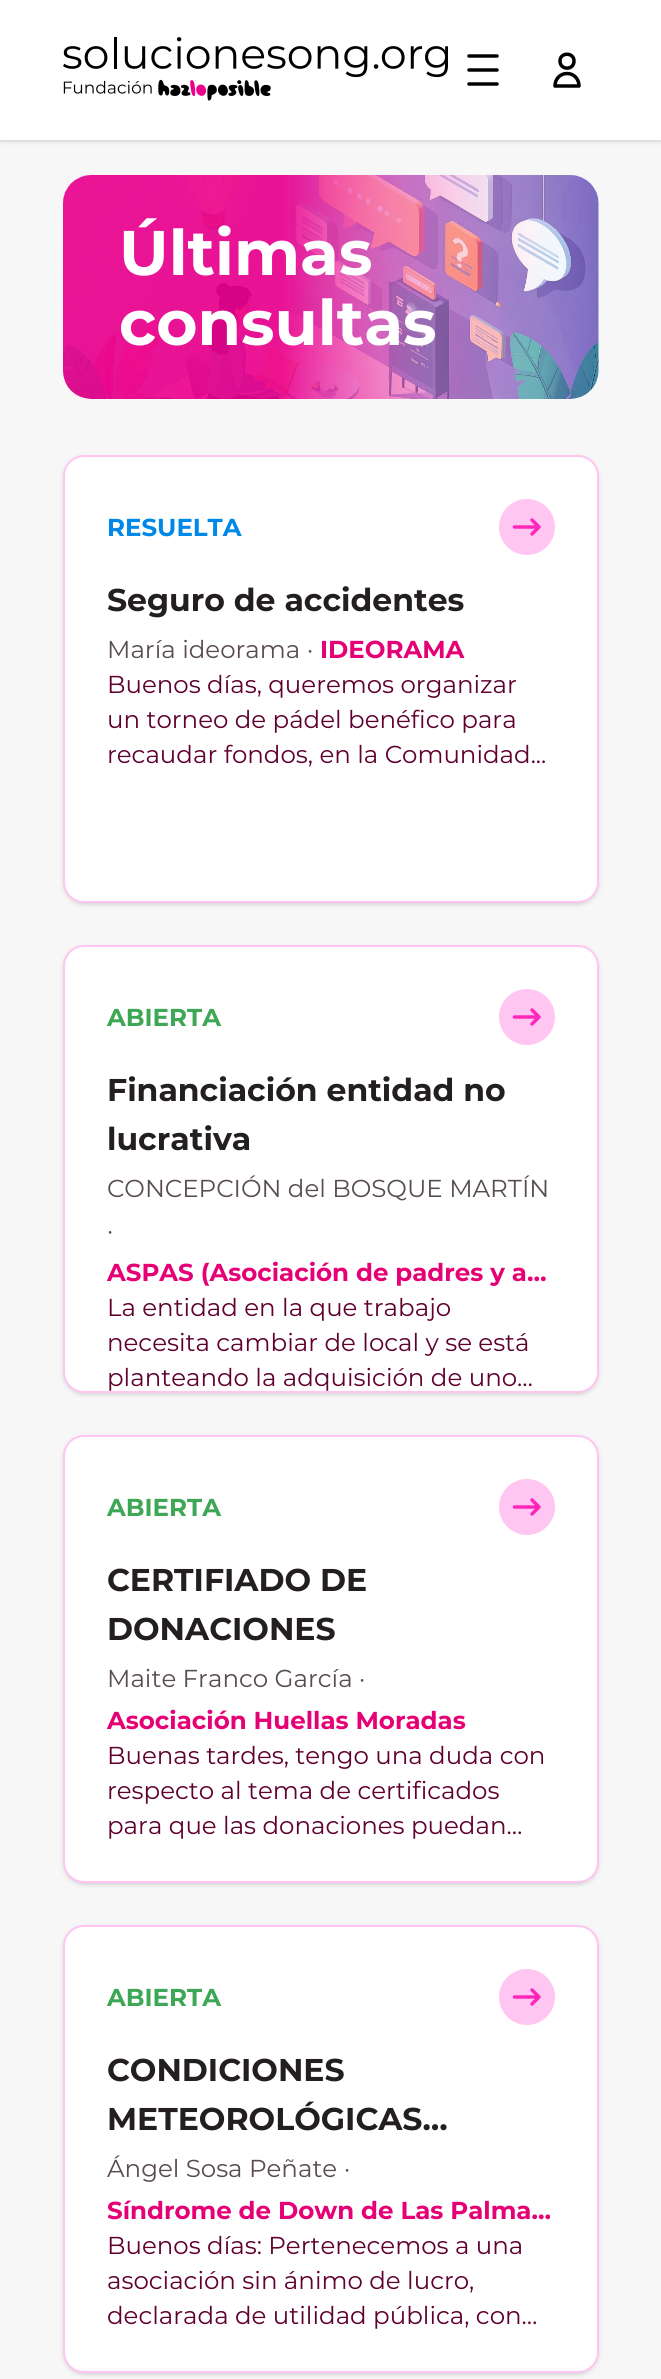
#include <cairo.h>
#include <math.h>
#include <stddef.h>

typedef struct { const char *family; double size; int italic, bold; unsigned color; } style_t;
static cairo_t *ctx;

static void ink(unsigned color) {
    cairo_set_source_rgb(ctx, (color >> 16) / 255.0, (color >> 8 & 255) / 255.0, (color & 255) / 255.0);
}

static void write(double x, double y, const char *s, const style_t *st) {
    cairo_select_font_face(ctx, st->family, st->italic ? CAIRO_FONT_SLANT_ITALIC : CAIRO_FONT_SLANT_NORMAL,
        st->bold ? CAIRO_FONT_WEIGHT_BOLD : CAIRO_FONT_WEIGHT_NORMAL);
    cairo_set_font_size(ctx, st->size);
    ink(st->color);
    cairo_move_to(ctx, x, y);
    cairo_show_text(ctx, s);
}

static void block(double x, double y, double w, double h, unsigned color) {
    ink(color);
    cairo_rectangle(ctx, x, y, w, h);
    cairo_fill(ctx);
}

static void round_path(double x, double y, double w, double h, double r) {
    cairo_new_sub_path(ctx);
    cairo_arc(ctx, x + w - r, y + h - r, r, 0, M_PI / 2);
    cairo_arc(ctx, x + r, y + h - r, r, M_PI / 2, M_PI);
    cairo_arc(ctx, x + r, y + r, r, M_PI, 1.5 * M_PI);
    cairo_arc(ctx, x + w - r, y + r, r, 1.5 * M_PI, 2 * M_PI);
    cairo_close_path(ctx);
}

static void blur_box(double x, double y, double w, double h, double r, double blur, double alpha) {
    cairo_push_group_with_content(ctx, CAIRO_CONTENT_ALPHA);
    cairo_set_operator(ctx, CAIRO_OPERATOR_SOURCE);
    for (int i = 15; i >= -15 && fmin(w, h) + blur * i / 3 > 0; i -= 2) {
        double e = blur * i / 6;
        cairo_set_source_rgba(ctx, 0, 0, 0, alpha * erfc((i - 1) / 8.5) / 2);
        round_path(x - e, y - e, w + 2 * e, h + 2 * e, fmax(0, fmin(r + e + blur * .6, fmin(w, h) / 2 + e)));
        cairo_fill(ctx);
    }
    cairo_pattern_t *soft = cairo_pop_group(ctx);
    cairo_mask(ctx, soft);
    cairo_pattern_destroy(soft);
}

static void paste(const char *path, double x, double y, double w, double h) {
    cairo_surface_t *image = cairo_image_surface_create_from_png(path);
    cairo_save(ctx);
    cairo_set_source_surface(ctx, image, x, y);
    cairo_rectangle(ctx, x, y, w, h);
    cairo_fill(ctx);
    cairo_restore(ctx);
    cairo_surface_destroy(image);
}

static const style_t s1 = {"Montserrat", 63, 0, 1, 0xffffff};
static const style_t s2 = {"Montserrat", 24.5, 0, 1, 0x0088e8};
static const style_t s3 = {"Montserrat", 31.5, 0, 1, 0x231f20};
static const style_t s4 = {"Montserrat", 24.5, 0, 0, 0x584c50};
static const style_t s5 = {"Montserrat", 24.5, 0, 1, 0xe60076};
static const style_t s6 = {"Montserrat", 24.5, 0, 0, 0x5f002f};
static const style_t s7 = {"Montserrat", 24.5, 0, 1, 0x3da755};

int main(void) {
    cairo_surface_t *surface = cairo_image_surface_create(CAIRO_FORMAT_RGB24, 661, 2379);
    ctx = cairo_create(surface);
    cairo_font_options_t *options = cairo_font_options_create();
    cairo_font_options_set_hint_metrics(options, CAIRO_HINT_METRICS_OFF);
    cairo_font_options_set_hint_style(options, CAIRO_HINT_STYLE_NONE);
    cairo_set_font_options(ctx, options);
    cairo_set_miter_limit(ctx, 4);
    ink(0xf8f7f8);
    cairo_paint(ctx);
    ink(0x000000);
    blur_box(2, 4, 658, 136, 0, 2, 0.1);
    blur_box(0, 2, 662, 140, 0, 2.5, 0.1);
    block(0, 0, 661, 140, 0xffffff);
    paste("pic1.png", 63, 37, 385, 64);
    cairo_new_path(ctx);
    cairo_move_to(ctx, 469, 84);
    cairo_line_to(ctx, 497, 84);
    cairo_move_to(ctx, 469, 70);
    cairo_line_to(ctx, 497, 70);
    cairo_move_to(ctx, 469, 56);
    cairo_line_to(ctx, 497, 56);
    ink(0x000000);
    cairo_set_line_width(ctx, 3.5);
    cairo_set_line_cap(ctx, CAIRO_LINE_CAP_ROUND);
    cairo_set_line_join(ctx, CAIRO_LINE_JOIN_ROUND);
    cairo_stroke(ctx);
    cairo_new_path(ctx);
    cairo_move_to(ctx, 574, 61);
    cairo_curve_to(ctx, 574, 70.5, 560, 70.5, 560, 61);
    cairo_curve_to(ctx, 560, 52, 574, 52, 574, 61);
    cairo_close_path(ctx);
    cairo_move_to(ctx, 567, 73.5);
    cairo_curve_to(ctx, 560, 73.5, 555, 79, 555, 86);
    cairo_line_to(ctx, 579, 86);
    cairo_curve_to(ctx, 579, 79, 574, 73.5, 567, 73.5);
    cairo_close_path(ctx);
    cairo_stroke(ctx);
    paste("pic2.png", 63, 175, 536, 224);
    write(119, 275, "Últimas", &s1);
    write(119, 345, "consultas", &s1);
    ink(0x000000);
    blur_box(65, 459, 532, 444, 19, 2, 0.1);
    blur_box(63, 457, 536, 448, 21, 2.5, 0.1);
    ink(0xffffff);
    round_path(64, 456, 534, 446, 20);
    cairo_fill_preserve(ctx);
    ink(0xffc6f1);
    cairo_set_line_width(ctx, 2);
    cairo_set_line_cap(ctx, CAIRO_LINE_CAP_BUTT);
    cairo_set_line_join(ctx, CAIRO_LINE_JOIN_MITER);
    cairo_stroke(ctx);
    write(107, 536, "RESUELTA", &s2);
    ink(0xffc6f1);
    cairo_new_path(ctx);
    cairo_arc(ctx, 527, 527, 28, 0, 2 * M_PI);
    cairo_fill(ctx);
    cairo_new_path(ctx);
    cairo_move_to(ctx, 514.5, 527);
    cairo_line_to(ctx, 539, 527);
    cairo_move_to(ctx, 532, 534);
    cairo_line_to(ctx, 539, 527);
    cairo_move_to(ctx, 532, 520);
    cairo_line_to(ctx, 539, 527);
    ink(0xff27b9);
    cairo_set_line_width(ctx, 3.5);
    cairo_set_line_cap(ctx, CAIRO_LINE_CAP_ROUND);
    cairo_set_line_join(ctx, CAIRO_LINE_JOIN_ROUND);
    cairo_stroke(ctx);
    write(107, 611, "Seguro de accidentes", &s3);
    write(107, 658, "María ideorama", &s4);
    write(307, 658, "·", &s4);
    write(320, 658, "IDEORAMA", &s5);
    write(107, 693, "Buenos días, queremos organizar", &s6);
    write(107, 728, "un torneo de pádel benéfico para", &s6);
    write(107, 763, "recaudar fondos, en la Comunidad...", &s6);
    ink(0x000000);
    blur_box(65, 949, 532, 444, 19, 2, 0.1);
    blur_box(63, 947, 536, 448, 21, 2.5, 0.1);
    ink(0xffffff);
    round_path(64, 946, 534, 446, 20);
    cairo_fill_preserve(ctx);
    ink(0xffc6f1);
    cairo_set_line_width(ctx, 2);
    cairo_set_line_cap(ctx, CAIRO_LINE_CAP_BUTT);
    cairo_set_line_join(ctx, CAIRO_LINE_JOIN_MITER);
    cairo_stroke(ctx);
    write(107, 1026, "ABIERTA", &s7);
    ink(0xffc6f1);
    cairo_new_path(ctx);
    cairo_arc(ctx, 527, 1017, 28, 0, 2 * M_PI);
    cairo_fill(ctx);
    cairo_new_path(ctx);
    cairo_move_to(ctx, 514.5, 1017);
    cairo_line_to(ctx, 539, 1017);
    cairo_move_to(ctx, 532, 1024);
    cairo_line_to(ctx, 539, 1017);
    cairo_move_to(ctx, 532, 1010);
    cairo_line_to(ctx, 539, 1017);
    ink(0xff27b9);
    cairo_set_line_width(ctx, 3.5);
    cairo_set_line_cap(ctx, CAIRO_LINE_CAP_ROUND);
    cairo_set_line_join(ctx, CAIRO_LINE_JOIN_ROUND);
    cairo_stroke(ctx);
    write(107, 1101, "Financiación entidad no", &s3);
    write(107, 1150, "lucrativa", &s3);
    write(107, 1197, "CONCEPCIÓN del BOSQUE MARTÍN", &s4);
    write(107, 1239, "·", &s4);
    write(107, 1281, "ASPAS (Asociación de padres y a…", &s5);
    write(107, 1316, "La entidad en la que trabajo", &s6);
    write(107, 1351, "necesita cambiar de local y se está", &s6);
    write(107, 1386, "planteando la adquisición de uno…", &s6);
    ink(0x000000);
    blur_box(65, 1439, 532, 444, 19, 2, 0.1);
    blur_box(63, 1437, 536, 448, 21, 2.5, 0.1);
    ink(0xffffff);
    round_path(64, 1436, 534, 446, 20);
    cairo_fill_preserve(ctx);
    ink(0xffc6f1);
    cairo_set_line_width(ctx, 2);
    cairo_set_line_cap(ctx, CAIRO_LINE_CAP_BUTT);
    cairo_set_line_join(ctx, CAIRO_LINE_JOIN_MITER);
    cairo_stroke(ctx);
    write(107, 1516, "ABIERTA", &s7);
    ink(0xffc6f1);
    cairo_new_path(ctx);
    cairo_arc(ctx, 527, 1507, 28, 0, 2 * M_PI);
    cairo_fill(ctx);
    cairo_new_path(ctx);
    cairo_move_to(ctx, 514.5, 1507);
    cairo_line_to(ctx, 539, 1507);
    cairo_move_to(ctx, 532, 1514);
    cairo_line_to(ctx, 539, 1507);
    cairo_move_to(ctx, 532, 1500);
    cairo_line_to(ctx, 539, 1507);
    ink(0xff27b9);
    cairo_set_line_width(ctx, 3.5);
    cairo_set_line_cap(ctx, CAIRO_LINE_CAP_ROUND);
    cairo_set_line_join(ctx, CAIRO_LINE_JOIN_ROUND);
    cairo_stroke(ctx);
    write(107, 1591, "CERTIFIADO DE", &s3);
    write(107, 1640, "DONACIONES", &s3);
    write(107, 1687, "Maite Franco García", &s4);
    write(359, 1687, "·", &s4);
    write(107, 1729, "Asociación Huellas Moradas", &s5);
    write(107, 1764, "Buenas tardes, tengo una duda con", &s6);
    write(107, 1799, "respecto al tema de certificados", &s6);
    write(107, 1834, "para que las donaciones puedan…", &s6);
    ink(0x000000);
    blur_box(65, 1929, 532, 444, 19, 2, 0.1);
    blur_box(63, 1927, 536, 448, 21, 2.5, 0.1);
    ink(0xffffff);
    round_path(64, 1926, 534, 446, 20);
    cairo_fill_preserve(ctx);
    ink(0xffc6f1);
    cairo_set_line_width(ctx, 2);
    cairo_set_line_cap(ctx, CAIRO_LINE_CAP_BUTT);
    cairo_set_line_join(ctx, CAIRO_LINE_JOIN_MITER);
    cairo_stroke(ctx);
    write(107, 2006, "ABIERTA", &s7);
    ink(0xffc6f1);
    cairo_new_path(ctx);
    cairo_arc(ctx, 527, 1997, 28, 0, 2 * M_PI);
    cairo_fill(ctx);
    cairo_new_path(ctx);
    cairo_move_to(ctx, 514.5, 1997);
    cairo_line_to(ctx, 539, 1997);
    cairo_move_to(ctx, 532, 2004);
    cairo_line_to(ctx, 539, 1997);
    cairo_move_to(ctx, 532, 1990);
    cairo_line_to(ctx, 539, 1997);
    ink(0xff27b9);
    cairo_set_line_width(ctx, 3.5);
    cairo_set_line_cap(ctx, CAIRO_LINE_CAP_ROUND);
    cairo_set_line_join(ctx, CAIRO_LINE_JOIN_ROUND);
    cairo_stroke(ctx);
    write(107, 2081, "CONDICIONES", &s3);
    write(107, 2130, "METEOROLÓGICAS…", &s3);
    write(107, 2177, "Ángel Sosa Peñate", &s4);
    write(344, 2177, "·", &s4);
    write(107, 2219, "Síndrome de Down de Las Palma…", &s5);
    write(107, 2254, "Buenos días: Pertenecemos a una", &s6);
    write(107, 2289, "asociación sin ánimo de lucro,", &s6);
    write(107, 2324, "declarada de utilidad pública, con…", &s6);
    cairo_surface_write_to_png(surface, "screenshot.png");
    cairo_font_options_destroy(options);
    cairo_destroy(ctx);
    cairo_surface_destroy(surface);
    return 0;
}
